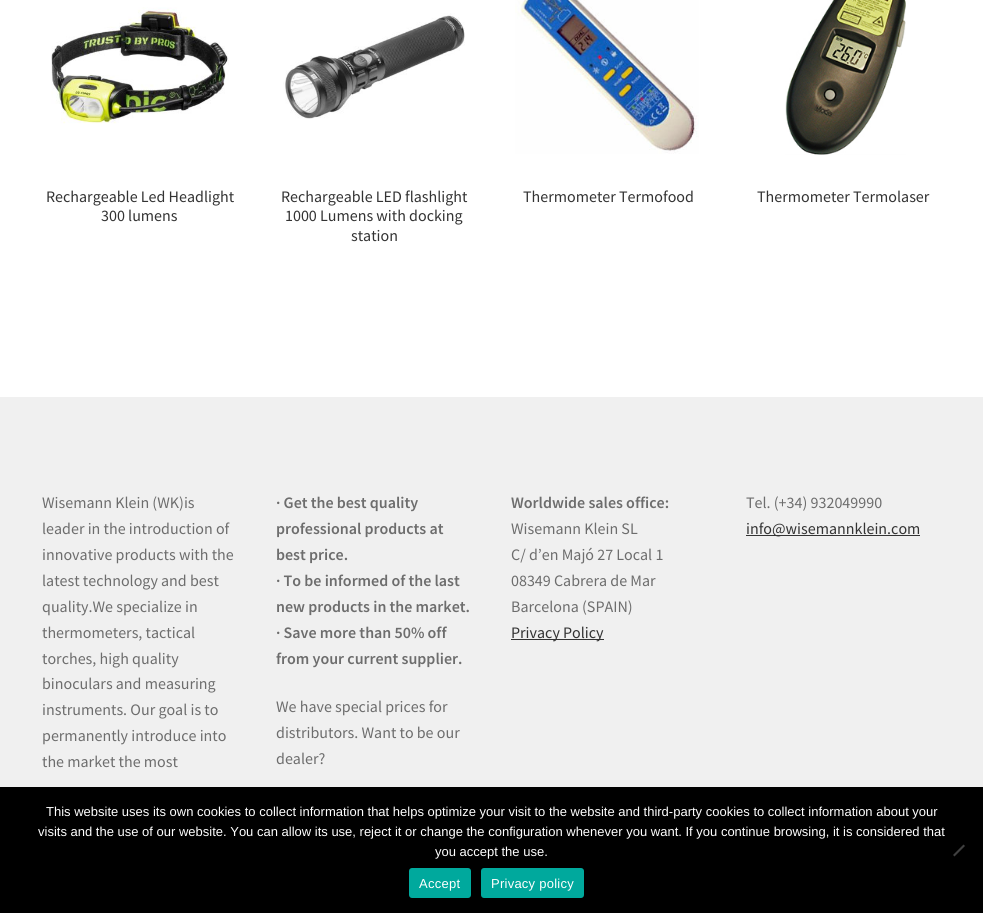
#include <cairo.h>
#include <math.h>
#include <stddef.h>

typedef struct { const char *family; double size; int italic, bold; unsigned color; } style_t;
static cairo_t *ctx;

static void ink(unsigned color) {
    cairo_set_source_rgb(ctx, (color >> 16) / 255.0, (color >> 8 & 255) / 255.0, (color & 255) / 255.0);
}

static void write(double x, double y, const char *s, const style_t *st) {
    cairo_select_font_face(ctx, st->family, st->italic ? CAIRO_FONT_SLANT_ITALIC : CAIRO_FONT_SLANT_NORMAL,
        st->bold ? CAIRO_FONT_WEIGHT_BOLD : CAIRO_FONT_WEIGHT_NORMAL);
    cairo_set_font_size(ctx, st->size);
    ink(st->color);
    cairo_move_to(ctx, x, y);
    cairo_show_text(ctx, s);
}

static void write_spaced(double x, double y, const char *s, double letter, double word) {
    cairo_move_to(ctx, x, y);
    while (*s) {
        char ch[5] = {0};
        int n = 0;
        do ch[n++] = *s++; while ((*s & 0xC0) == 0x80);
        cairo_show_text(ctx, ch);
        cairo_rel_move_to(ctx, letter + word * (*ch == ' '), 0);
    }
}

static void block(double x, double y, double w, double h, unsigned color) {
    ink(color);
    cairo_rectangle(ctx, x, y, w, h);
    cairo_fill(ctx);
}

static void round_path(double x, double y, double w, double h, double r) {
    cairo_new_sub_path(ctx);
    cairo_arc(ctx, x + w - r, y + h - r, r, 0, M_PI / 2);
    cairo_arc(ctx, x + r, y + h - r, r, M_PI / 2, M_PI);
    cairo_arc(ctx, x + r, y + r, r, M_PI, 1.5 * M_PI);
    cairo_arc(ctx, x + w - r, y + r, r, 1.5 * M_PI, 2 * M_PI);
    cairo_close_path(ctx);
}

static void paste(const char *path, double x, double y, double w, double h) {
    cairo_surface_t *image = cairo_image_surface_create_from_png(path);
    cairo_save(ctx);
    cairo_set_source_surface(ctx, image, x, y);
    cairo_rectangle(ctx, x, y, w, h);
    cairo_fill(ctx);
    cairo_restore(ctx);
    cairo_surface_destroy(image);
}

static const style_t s1 = {"Source Sans Pro", 16, 0, 0, 0x333333};
static const style_t s2 = {"Source Sans Pro", 16, 0, 0, 0x6d6d6d};
static const style_t s3 = {"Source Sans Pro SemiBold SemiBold", 16, 0, 0, 0x6d6d6d};
static const style_t s4 = {"Liberation Sans", 13, 0, 0, 0xffffff};

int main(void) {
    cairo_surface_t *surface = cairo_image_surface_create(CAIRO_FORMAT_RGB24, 983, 913);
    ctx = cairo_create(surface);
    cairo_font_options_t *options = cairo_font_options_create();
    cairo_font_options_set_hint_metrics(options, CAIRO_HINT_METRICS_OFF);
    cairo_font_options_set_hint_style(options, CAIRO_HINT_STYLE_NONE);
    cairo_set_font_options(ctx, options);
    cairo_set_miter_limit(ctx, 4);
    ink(0xffffff);
    cairo_paint(ctx);
    paste("pic1.png", 51, 7, 178, 117);
    write(46, 202, "Rechargeable Led Headlight", &s1);
    write(101, 221, "300 lumens", &s1);
    paste("pic2.png", 283, 13, 182, 106);
    write(281, 202, "Rechargeable LED flashlight", &s1);
    write(285, 221, "1000 Lumens with docking", &s1);
    write(351, 241, "station", &s1);
    paste("pic3.png", 515, 0, 184, 154);
    write(523, 202, "Thermometer Termofood", &s1);
    paste("pic4.png", 785, 0, 121, 155);
    write(757, 202, "Thermometer Termolaser", &s1);
    block(0, 397, 983, 390, 0xf0f0f0);
    write(42, 508, "Wisemann Klein (WK)is", &s2);
    write(42, 534, "leader in the introduction of", &s2);
    write(42, 560, "innovative products with the", &s2);
    write(42, 586, "latest technology and best", &s2);
    write(42, 612, "quality.We specialize in", &s2);
    write(42, 638, "thermometers, tactical", &s2);
    write(42, 664, "torches, high quality", &s2);
    write(42, 689, "binoculars and measuring", &s2);
    write(42, 715, "instruments. Our goal is to", &s2);
    write(42, 741, "permanently introduce into", &s2);
    write(42, 767, "the market the most", &s2);
    write(276, 508, "· Get the best quality", &s3);
    write(276, 534, "professional products at", &s3);
    write(276, 560, "best price.", &s3);
    write(276, 586, "· To be informed of the last", &s3);
    write(276, 612, "new products in the market.", &s3);
    write(276, 638, "· Save more than 50% off", &s3);
    write(276, 664, "from your current supplier.", &s3);
    write(276, 712, "We have special prices for", &s2);
    write(276, 738, "distributors. Want to be our", &s2);
    write(276, 764, "dealer?", &s2);
    write(511, 508, "Worldwide sales office:", &s3);
    write(511, 534, "Wisemann Klein SL", &s2);
    write(511, 560, "C/ d’en Majó 27 Local 1", &s2);
    write(511, 586, "08349 Cabrera de Mar", &s2);
    write(511, 612, "Barcelona (SPAIN)", &s2);
    block(511, 639, 93, 1, 0x333333);
    write(511, 638, "Privacy Policy", &s1);
    write(746, 508, "Tel. (+34) 932049990", &s2);
    block(746, 535, 174, 1, 0x333333);
    write(746, 534, "info@wisemannklein.com", &s1);
    block(0, 787, 983, 126, 0x000000);
    write(46, 816, "This website uses its own cookies to collect information that helps optimize your visit to the website and third-party cookies to collect information about your", &s4);
    write(38, 836, "visits and the use of our website. You can allow its use, reject it or change the configuration whenever you want. If you continue browsing, it is considered that", &s4);
    write(435, 856, "you accept the use.", &s4);
    ink(0x404040);
    cairo_new_path(ctx);
    cairo_move_to(ctx, 963.5, 844.5);
    cairo_line_to(ctx, 965, 846);
    cairo_line_to(ctx, 954.5, 856.5);
    cairo_line_to(ctx, 953, 855);
    cairo_close_path(ctx);
    cairo_fill(ctx);
    ink(0x00a99d);
    round_path(409, 868, 62, 30, 3);
    cairo_fill(ctx);
    ink(0xffffff);
    write_spaced(419, 888, "Accept", 0.25, 0);
    ink(0x00a99d);
    round_path(481, 868, 103, 30, 3);
    cairo_fill(ctx);
    ink(0xffffff);
    write_spaced(491, 888, "Privacy policy", 0.25, 0);
    cairo_surface_write_to_png(surface, "screenshot.png");
    cairo_font_options_destroy(options);
    cairo_destroy(ctx);
    cairo_surface_destroy(surface);
    return 0;
}
